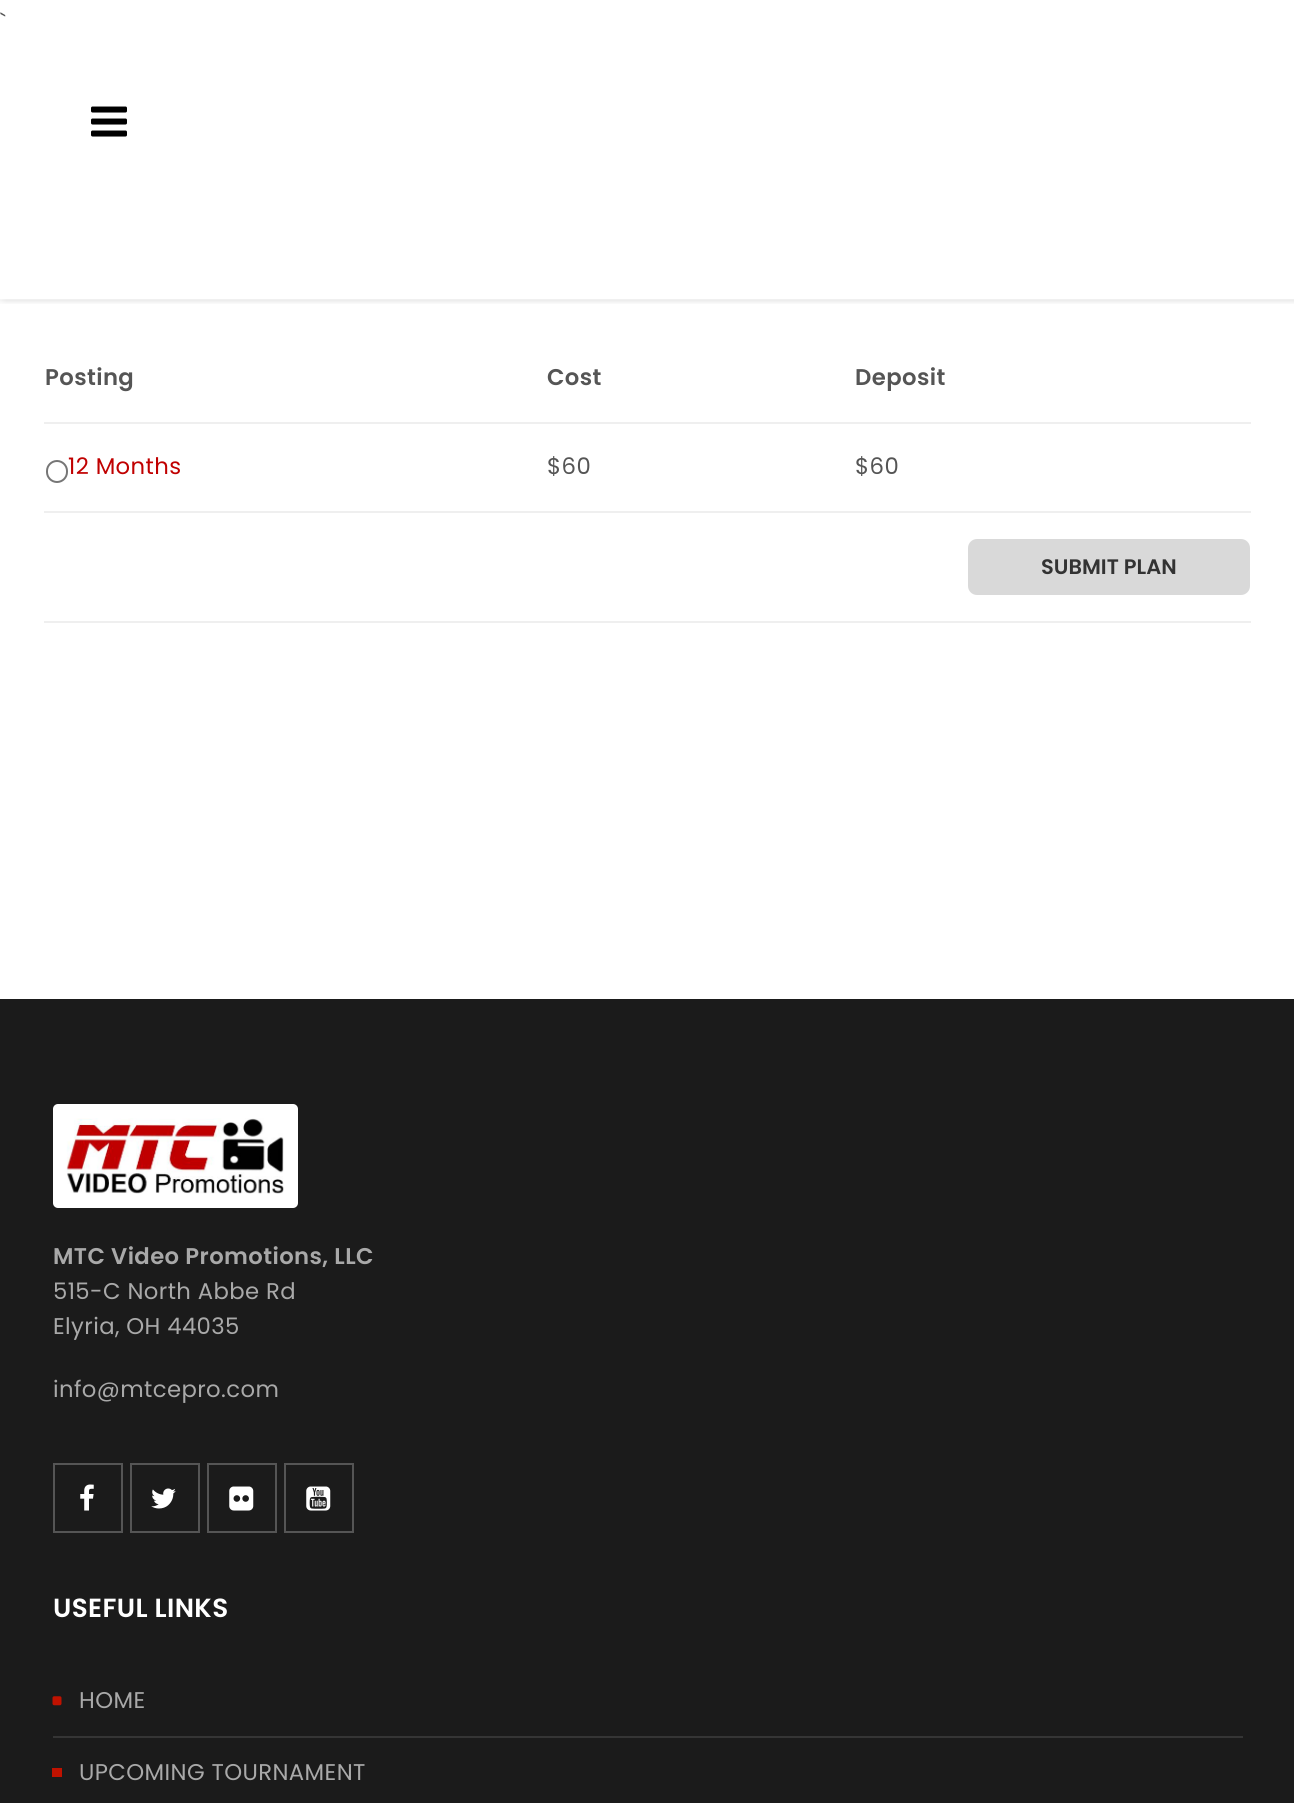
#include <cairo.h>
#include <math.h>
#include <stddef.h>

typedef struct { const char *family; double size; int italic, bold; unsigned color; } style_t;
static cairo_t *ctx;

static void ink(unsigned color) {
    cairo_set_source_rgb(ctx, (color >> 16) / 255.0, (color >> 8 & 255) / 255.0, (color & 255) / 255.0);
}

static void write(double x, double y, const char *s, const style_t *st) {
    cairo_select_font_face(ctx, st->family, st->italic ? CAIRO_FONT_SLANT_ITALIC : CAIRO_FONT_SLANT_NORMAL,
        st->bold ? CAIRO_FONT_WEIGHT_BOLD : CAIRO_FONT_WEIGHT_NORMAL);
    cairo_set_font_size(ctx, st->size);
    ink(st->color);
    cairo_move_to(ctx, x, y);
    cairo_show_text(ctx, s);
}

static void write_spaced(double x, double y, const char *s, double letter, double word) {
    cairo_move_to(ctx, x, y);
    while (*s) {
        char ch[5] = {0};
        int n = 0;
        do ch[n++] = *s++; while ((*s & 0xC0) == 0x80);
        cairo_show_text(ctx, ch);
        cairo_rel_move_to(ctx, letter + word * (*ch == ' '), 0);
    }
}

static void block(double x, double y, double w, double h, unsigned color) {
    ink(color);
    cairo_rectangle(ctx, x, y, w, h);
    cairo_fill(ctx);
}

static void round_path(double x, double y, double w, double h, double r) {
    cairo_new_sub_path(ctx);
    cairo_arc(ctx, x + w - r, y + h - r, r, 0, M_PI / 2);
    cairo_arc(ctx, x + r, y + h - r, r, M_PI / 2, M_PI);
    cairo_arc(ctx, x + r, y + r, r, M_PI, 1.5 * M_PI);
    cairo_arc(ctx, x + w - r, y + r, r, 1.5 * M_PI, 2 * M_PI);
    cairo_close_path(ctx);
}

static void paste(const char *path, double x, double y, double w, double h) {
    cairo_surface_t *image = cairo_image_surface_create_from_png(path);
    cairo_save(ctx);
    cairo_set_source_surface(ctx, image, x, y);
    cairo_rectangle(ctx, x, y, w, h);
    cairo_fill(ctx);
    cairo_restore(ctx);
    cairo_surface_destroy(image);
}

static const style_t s1 = {"Poppins SemiBold", 21, 0, 0, 0x333333};

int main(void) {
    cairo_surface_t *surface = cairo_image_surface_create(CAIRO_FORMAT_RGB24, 1294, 1803);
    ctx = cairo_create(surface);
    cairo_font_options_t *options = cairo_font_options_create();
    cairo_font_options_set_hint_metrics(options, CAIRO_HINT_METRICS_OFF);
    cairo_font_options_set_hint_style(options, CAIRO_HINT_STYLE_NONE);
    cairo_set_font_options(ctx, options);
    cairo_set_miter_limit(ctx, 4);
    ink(0xffffff);
    cairo_paint(ctx);
    cairo_select_font_face(ctx, "Poppins", CAIRO_FONT_SLANT_NORMAL, CAIRO_FONT_WEIGHT_NORMAL);
    cairo_set_font_size(ctx, 22.75);
    ink(0x555555);
    write_spaced(0, 30, "`", 0.4, 0);
    paste("pic1.png", 91, 106, 36, 31);
    paste("pic2.png", 0, 299, 1294, 5);
    cairo_select_font_face(ctx, "Poppins SemiBold", CAIRO_FONT_SLANT_NORMAL, CAIRO_FONT_WEIGHT_NORMAL);
    write_spaced(45, 385, "Posting", 0.4, 0);
    write_spaced(547, 385, "Cost", 0.4, 0);
    block(44, 422, 1207, 2, 0xefefef);
    ink(0x555555);
    write_spaced(855, 385, "Deposit", 0.4, 0);
    round_path(47, 461, 20, 21, 10);
    ink(0x767676);
    cairo_stroke(ctx);
    cairo_select_font_face(ctx, "Poppins", CAIRO_FONT_SLANT_NORMAL, CAIRO_FONT_WEIGHT_NORMAL);
    ink(0xc00000);
    write_spaced(68, 474, "12 Months", 0.4, 0);
    ink(0x555555);
    write_spaced(547, 474, "$60", 0.4, 0);
    block(44, 511, 1207, 2, 0xefefef);
    ink(0x555555);
    write_spaced(855, 474, "$60", 0.4, 0);
    block(44, 621, 1207, 2, 0xefefef);
    ink(0xd9d9d9);
    round_path(968, 539, 282, 56, 9);
    cairo_fill(ctx);
    write(1041, 574, "SUBMIT PLAN", &s1);
    block(0, 999, 1294, 804, 0x1b1b1b);
    ink(0xffffff);
    round_path(53, 1104, 245, 104, 5);
    cairo_fill(ctx);
    paste("pic3.png", 66, 1118, 218, 76);
    cairo_set_font_size(ctx, 22.75);
    ink(0xa9a9a9);
    write_spaced(53, 1264, "MTC Video Promotions, LLC", 0.4, 0);
    cairo_select_font_face(ctx, "Poppins", CAIRO_FONT_SLANT_NORMAL, CAIRO_FONT_WEIGHT_NORMAL);
    write_spaced(53, 1299, "515-C North Abbe Rd", 0.4, 0);
    write_spaced(53, 1334, "Elyria, OH 44035", 0.4, 0);
    write_spaced(53, 1397, "info@mtcepro.com", 0.4, 0);
    paste("pic4.png", 80, 1484, 14, 27);
    cairo_rectangle(ctx, 54, 1464, 68, 68);
    ink(0x555555);
    cairo_stroke(ctx);
    paste("pic5.png", 151, 1488, 25, 21);
    cairo_rectangle(ctx, 131, 1464, 68, 68);
    cairo_stroke(ctx);
    paste("pic6.png", 229, 1486, 25, 25);
    cairo_rectangle(ctx, 208, 1464, 68, 68);
    cairo_stroke(ctx);
    paste("pic7.png", 306, 1486, 25, 25);
    cairo_rectangle(ctx, 285, 1464, 68, 68);
    cairo_stroke(ctx);
    cairo_select_font_face(ctx, "Poppins SemiBold", CAIRO_FONT_SLANT_NORMAL, CAIRO_FONT_WEIGHT_NORMAL);
    cairo_set_font_size(ctx, 26.25);
    ink(0xffffff);
    write_spaced(53, 1617, "USEFUL LINKS", 0.4, 0);
    block(53, 1736, 1190, 2, 0x353535);
    paste("pic8.png", 52, 1696, 10, 10);
    cairo_select_font_face(ctx, "Poppins", CAIRO_FONT_SLANT_NORMAL, CAIRO_FONT_WEIGHT_NORMAL);
    cairo_set_font_size(ctx, 22.75);
    ink(0xa9a9a9);
    write_spaced(79, 1708, "HOME", 0.4, 0);
    block(52, 1768, 10, 9, 0xc01200);
    ink(0xa9a9a9);
    write_spaced(79, 1780, "UPCOMING TOURNAMENT", 0.4, 0);
    cairo_surface_write_to_png(surface, "screenshot.png");
    cairo_font_options_destroy(options);
    cairo_destroy(ctx);
    cairo_surface_destroy(surface);
    return 0;
}
